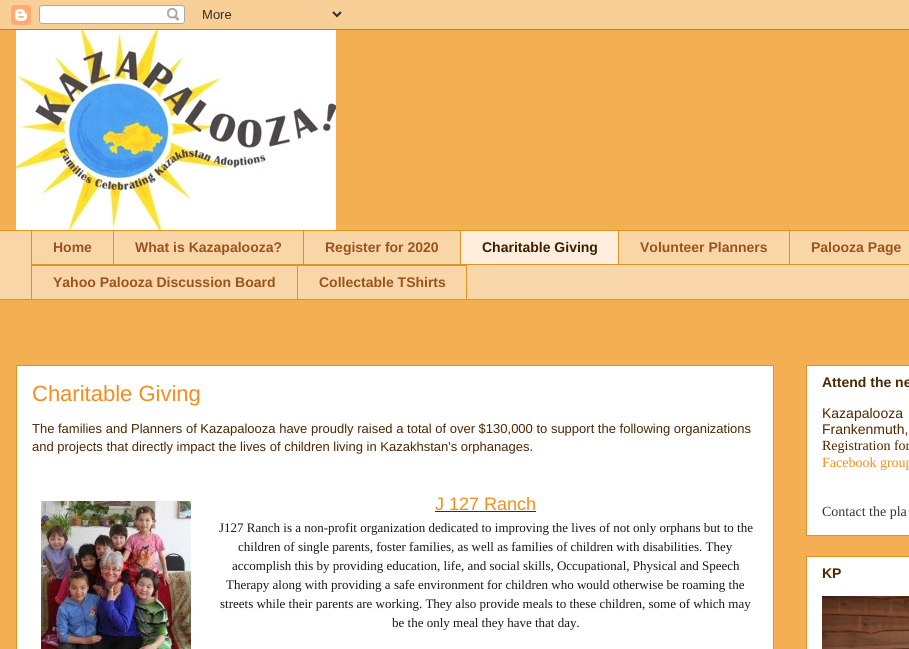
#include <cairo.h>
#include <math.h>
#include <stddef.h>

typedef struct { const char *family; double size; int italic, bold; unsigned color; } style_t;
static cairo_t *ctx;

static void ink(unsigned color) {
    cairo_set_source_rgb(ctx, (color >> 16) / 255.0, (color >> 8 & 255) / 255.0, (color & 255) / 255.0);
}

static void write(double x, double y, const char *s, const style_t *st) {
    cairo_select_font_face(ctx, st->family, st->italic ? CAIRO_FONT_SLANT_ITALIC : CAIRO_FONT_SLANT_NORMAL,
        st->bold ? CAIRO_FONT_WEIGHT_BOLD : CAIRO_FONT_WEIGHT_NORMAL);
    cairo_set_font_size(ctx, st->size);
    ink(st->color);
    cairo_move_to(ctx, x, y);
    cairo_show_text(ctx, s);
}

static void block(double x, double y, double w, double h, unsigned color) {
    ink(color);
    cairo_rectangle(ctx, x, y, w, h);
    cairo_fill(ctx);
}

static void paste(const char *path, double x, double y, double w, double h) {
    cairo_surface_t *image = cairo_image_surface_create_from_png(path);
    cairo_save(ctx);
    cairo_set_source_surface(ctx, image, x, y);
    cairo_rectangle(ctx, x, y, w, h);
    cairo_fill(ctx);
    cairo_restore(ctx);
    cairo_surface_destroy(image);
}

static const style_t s1 = {"Liberation Sans", 14, 0, 1, 0x99531e};
static const style_t s2 = {"Liberation Sans", 14, 0, 1, 0x3c1f00};
static const style_t s3 = {"Liberation Sans", 22, 0, 0, 0xf48d1d};
static const style_t s4 = {"Liberation Sans", 13, 0, 0, 0x4e2800};
static const style_t s5 = {"Liberation Sans", 18, 0, 0, 0xf48d1d};
static const style_t s6 = {"Liberation Serif", 13, 0, 0, 0x141823};
static const style_t s7 = {"Liberation Sans", 14, 0, 1, 0x4e2800};
static const style_t s8 = {"Liberation Sans", 14, 0, 0, 0x4e2800};
static const style_t s9 = {"Liberation Serif", 14, 0, 0, 0x4e2800};
static const style_t s10 = {"Liberation Serif", 14, 0, 0, 0xf48d1d};
static const style_t s11 = {"Liberation Serif", 14, 0, 0, 0x333333};

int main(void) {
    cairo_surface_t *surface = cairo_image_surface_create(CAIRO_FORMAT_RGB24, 909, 649);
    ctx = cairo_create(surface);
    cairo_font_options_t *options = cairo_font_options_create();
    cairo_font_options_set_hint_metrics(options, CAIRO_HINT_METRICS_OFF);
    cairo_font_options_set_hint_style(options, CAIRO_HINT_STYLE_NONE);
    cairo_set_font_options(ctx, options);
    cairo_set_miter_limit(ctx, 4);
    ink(0xf4af52);
    cairo_paint(ctx);
    paste("pic1.png", 0, 0, 909, 30);
    paste("pic2.png", 16, 30, 320, 200);
    block(0, 231, 909, 68, 0xf9d6a7);
    block(0, 230, 909, 1, 0xdc9522);
    block(31, 264, 878, 1, 0xdc9522);
    block(31, 230, 1, 35, 0xdc9522);
    write(53, 252, "Home", &s1);
    block(113, 230, 1, 35, 0xdc9522);
    write(135, 252, "What is Kazapalooza?", &s1);
    block(303, 230, 1, 35, 0xdc9522);
    write(325, 252, "Register for 2020", &s1);
    block(461, 231, 157, 33, 0xffeedd);
    block(460, 230, 1, 35, 0xdc9522);
    write(482, 252, "Charitable Giving", &s2);
    block(618, 230, 1, 35, 0xdc9522);
    write(640, 252, "Volunteer Planners", &s1);
    block(789, 230, 1, 35, 0xdc9522);
    write(811, 252, "Palooza Page", &s1);
    block(31, 265, 266, 1, 0xdc9522);
    block(31, 265, 1, 35, 0xdc9522);
    write(53, 287, "Yahoo Palooza Discussion Board", &s1);
    cairo_rectangle(ctx, 297.5, 265.5, 169, 34);
    ink(0xdc9522);
    cairo_set_line_width(ctx, 1);
    cairo_stroke(ctx);
    write(319, 287, "Collectable TShirts", &s1);
    block(0, 299, 909, 1, 0xdc9522);
    ink(0xffffff);
    cairo_rectangle(ctx, 16.5, 365.5, 757, 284);
    cairo_fill_preserve(ctx);
    ink(0xdc9522);
    cairo_stroke(ctx);
    write(32, 401, "Charitable Giving", &s3);
    write(32, 433, "The families and Planners of Kazapalooza have proudly raised a total of over $130,000 to support the following organizations", &s4);
    write(32, 451, "and projects that directly impact the lives of children living in Kazakhstan's orphanages.", &s4);
    paste("pic3.png", 41, 501, 150, 148);
    write(435, 510, "J 127 Ranch", &s5);
    block(435, 511, 101, 1, 0x4e2800);
    write(219, 532, "J127 Ranch is a non-profit organization dedicated to improving the lives of not only orphans but to the", &s6);
    write(238, 551, "children of single parents, foster families, as well as families of children with disabilities. They", &s6);
    write(232, 570, "accomplish this by providing education, life, and social skills, Occupational, Physical and Speech", &s6);
    write(226, 589, "Therapy along with providing a safe environment for children who would otherwise be roaming the", &s6);
    write(220, 608, "streets while their parents are working. They also provide meals to these children, some of which may", &s6);
    write(392, 627, "be the only meal they have that day.", &s6);
    ink(0xffffff);
    cairo_rectangle(ctx, 806.5, 365.5, 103, 170);
    cairo_fill_preserve(ctx);
    ink(0xdc9522);
    cairo_stroke(ctx);
    write(822, 387, "Attend the ne", &s7);
    write(822, 418, "Kazapalooza", &s8);
    write(822, 434, "Frankenmuth,", &s8);
    write(822, 450, "Registration for", &s9);
    write(822, 467, "Facebook group", &s10);
    write(822, 516, "Contact the pla", &s11);
    ink(0xffffff);
    cairo_rectangle(ctx, 806.5, 556.5, 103, 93);
    cairo_fill_preserve(ctx);
    ink(0xdc9522);
    cairo_stroke(ctx);
    write(822, 578, "KP", &s7);
    paste("pic4.png", 822, 596, 87, 53);
    cairo_surface_write_to_png(surface, "screenshot.png");
    cairo_font_options_destroy(options);
    cairo_destroy(ctx);
    cairo_surface_destroy(surface);
    return 0;
}
